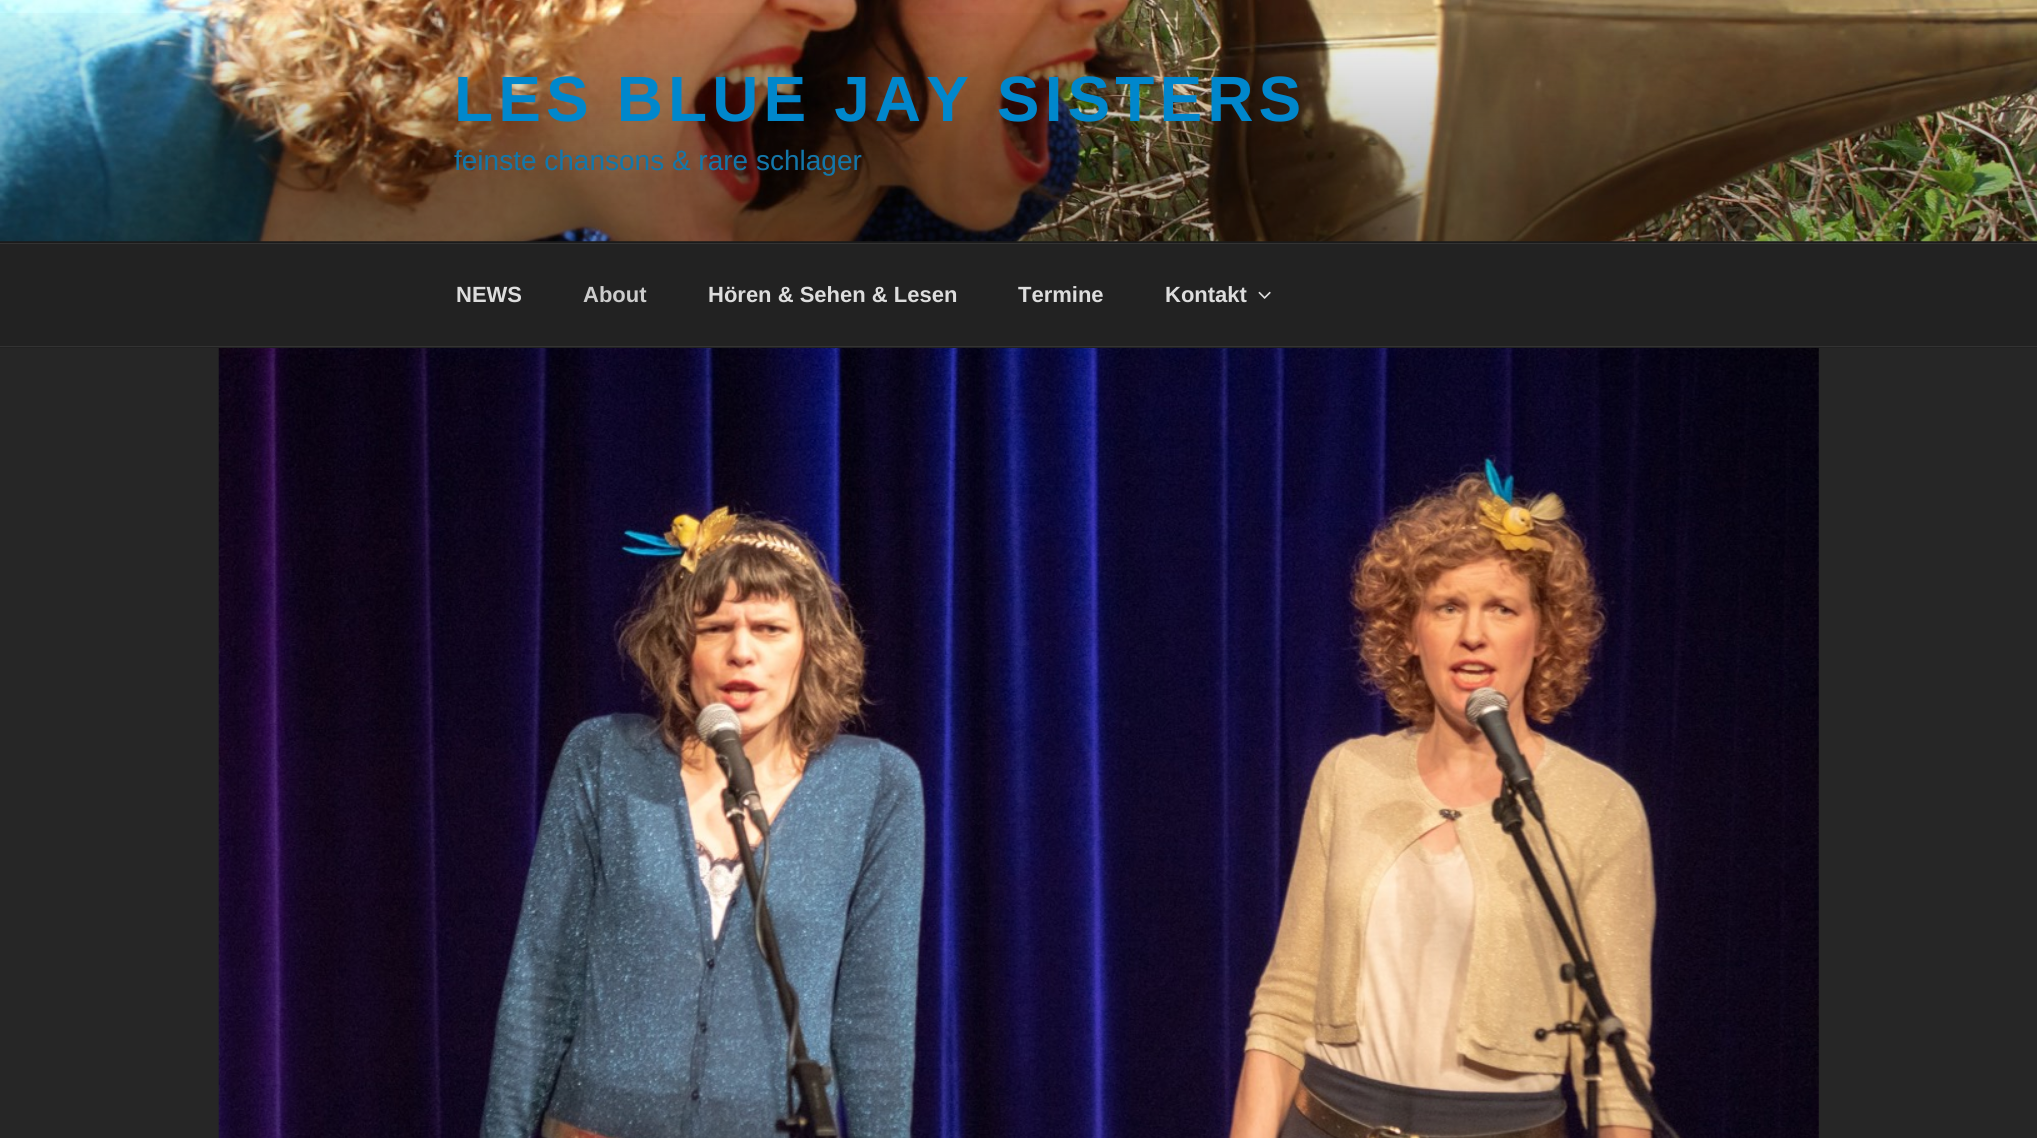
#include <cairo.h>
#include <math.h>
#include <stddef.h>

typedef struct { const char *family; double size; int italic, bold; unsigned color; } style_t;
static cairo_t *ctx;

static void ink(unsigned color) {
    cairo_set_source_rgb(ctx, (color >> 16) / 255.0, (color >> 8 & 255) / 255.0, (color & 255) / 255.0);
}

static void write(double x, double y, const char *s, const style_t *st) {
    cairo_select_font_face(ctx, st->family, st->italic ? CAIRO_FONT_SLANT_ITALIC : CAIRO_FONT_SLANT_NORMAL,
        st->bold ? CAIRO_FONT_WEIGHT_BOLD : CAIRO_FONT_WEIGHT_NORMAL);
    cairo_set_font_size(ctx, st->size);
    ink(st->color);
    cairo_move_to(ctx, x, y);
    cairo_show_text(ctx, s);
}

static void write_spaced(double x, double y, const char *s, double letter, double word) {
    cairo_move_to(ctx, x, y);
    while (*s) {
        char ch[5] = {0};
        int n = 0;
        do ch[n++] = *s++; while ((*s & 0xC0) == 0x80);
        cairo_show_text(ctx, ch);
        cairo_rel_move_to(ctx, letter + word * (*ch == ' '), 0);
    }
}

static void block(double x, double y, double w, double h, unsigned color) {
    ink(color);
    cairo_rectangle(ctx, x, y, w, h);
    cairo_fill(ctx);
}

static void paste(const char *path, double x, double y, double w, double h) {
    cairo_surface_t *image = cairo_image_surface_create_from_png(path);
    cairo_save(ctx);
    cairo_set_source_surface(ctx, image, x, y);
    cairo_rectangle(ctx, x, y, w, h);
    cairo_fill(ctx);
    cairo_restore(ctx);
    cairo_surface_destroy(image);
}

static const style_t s1 = {"Liberation Sans", 28, 0, 0, 0x1377aa};
static const style_t s2 = {"Liberation Sans", 22, 0, 1, 0xdddddd};
static const style_t s3 = {"Liberation Sans", 22, 0, 1, 0xcccccc};

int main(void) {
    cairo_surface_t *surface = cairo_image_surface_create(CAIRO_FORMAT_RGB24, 2037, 1138);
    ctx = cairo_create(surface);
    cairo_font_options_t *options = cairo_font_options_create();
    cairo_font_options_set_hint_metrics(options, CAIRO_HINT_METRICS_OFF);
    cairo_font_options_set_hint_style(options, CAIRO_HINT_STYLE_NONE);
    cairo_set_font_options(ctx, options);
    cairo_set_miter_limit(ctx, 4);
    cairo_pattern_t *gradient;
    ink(0x262626);
    cairo_paint(ctx);
    paste("pic1.png", 0, 0, 2037, 242);
    gradient = cairo_pattern_create_linear(1019, 0, 1019, 243);
    cairo_pattern_add_color_stop_rgba(gradient, 0, 0, 0, 0, 0);
    cairo_pattern_add_color_stop_rgba(gradient, 0.75, 0, 0, 0, 0.3);
    cairo_pattern_add_color_stop_rgba(gradient, 1, 0, 0, 0, 0.3);
    cairo_set_source(ctx, gradient);
    cairo_pattern_destroy(gradient);
    cairo_rectangle(ctx, 0, 13, 2037, 230);
    cairo_fill(ctx);
    cairo_select_font_face(ctx, "Liberation Sans", CAIRO_FONT_SLANT_NORMAL, CAIRO_FONT_WEIGHT_BOLD);
    cairo_set_font_size(ctx, 64);
    ink(0x0087cc);
    write_spaced(454, 121, "LES BLUE JAY SISTERS", 5.1, 0);
    write(454, 170, "feinste chansons & rare schlager", &s1);
    block(0, 244, 2037, 104, 0x222222);
    block(0, 243, 2037, 1, 0x333333);
    block(0, 346, 2037, 1, 0x333333);
    write(456, 302, "NEWS", &s2);
    write(583, 302, "About", &s3);
    write(708, 302, "Hören & Sehen & Lesen", &s2);
    write(1018, 302, "Termine", &s2);
    write(1165, 302, "Kontakt", &s2);
    paste("pic2.png", 1258, 291, 13, 8);
    paste("pic3.png", 218, 348, 1601, 790);
    cairo_surface_write_to_png(surface, "screenshot.png");
    cairo_font_options_destroy(options);
    cairo_destroy(ctx);
    cairo_surface_destroy(surface);
    return 0;
}
